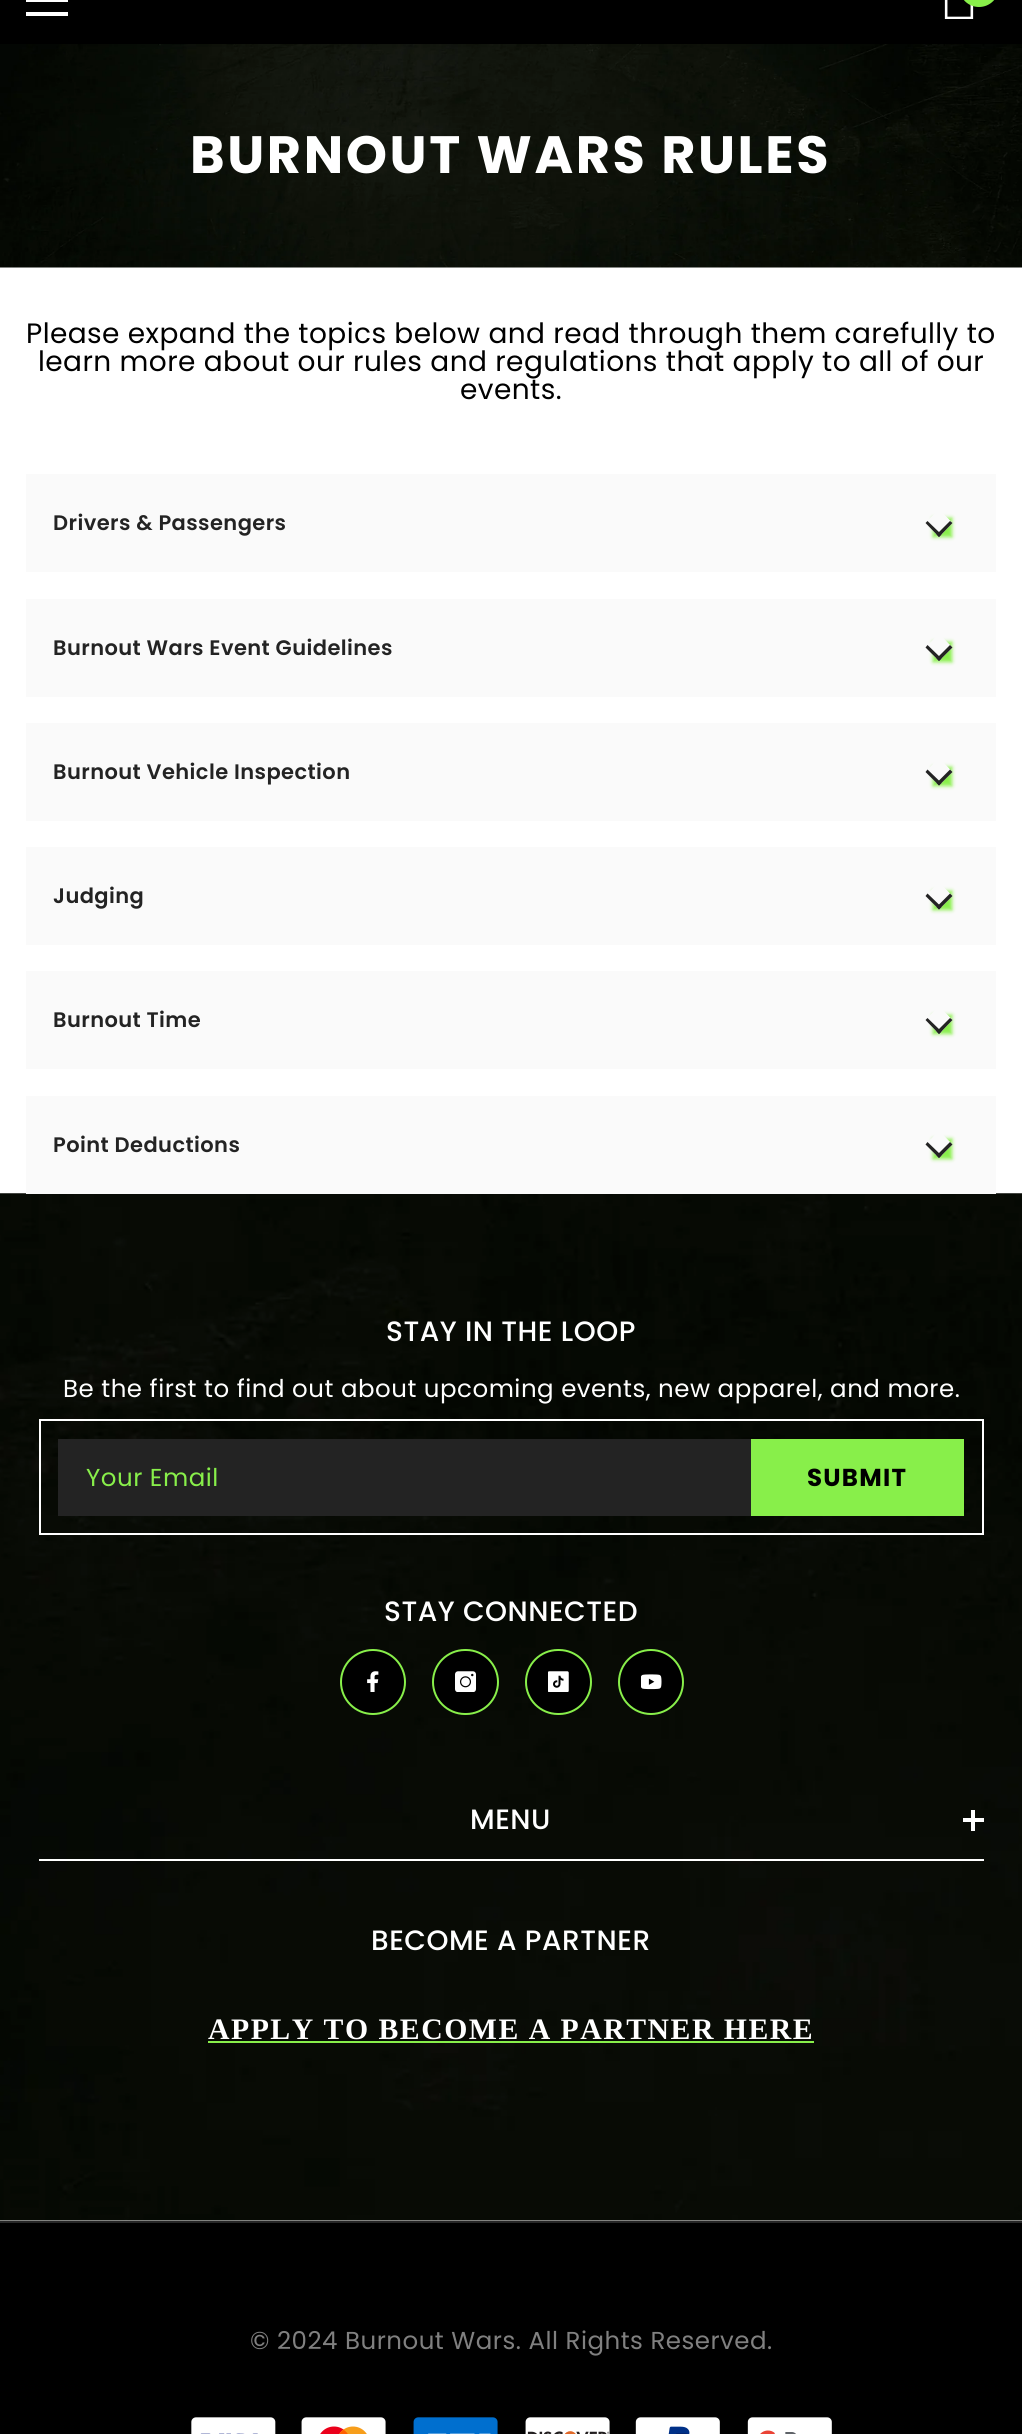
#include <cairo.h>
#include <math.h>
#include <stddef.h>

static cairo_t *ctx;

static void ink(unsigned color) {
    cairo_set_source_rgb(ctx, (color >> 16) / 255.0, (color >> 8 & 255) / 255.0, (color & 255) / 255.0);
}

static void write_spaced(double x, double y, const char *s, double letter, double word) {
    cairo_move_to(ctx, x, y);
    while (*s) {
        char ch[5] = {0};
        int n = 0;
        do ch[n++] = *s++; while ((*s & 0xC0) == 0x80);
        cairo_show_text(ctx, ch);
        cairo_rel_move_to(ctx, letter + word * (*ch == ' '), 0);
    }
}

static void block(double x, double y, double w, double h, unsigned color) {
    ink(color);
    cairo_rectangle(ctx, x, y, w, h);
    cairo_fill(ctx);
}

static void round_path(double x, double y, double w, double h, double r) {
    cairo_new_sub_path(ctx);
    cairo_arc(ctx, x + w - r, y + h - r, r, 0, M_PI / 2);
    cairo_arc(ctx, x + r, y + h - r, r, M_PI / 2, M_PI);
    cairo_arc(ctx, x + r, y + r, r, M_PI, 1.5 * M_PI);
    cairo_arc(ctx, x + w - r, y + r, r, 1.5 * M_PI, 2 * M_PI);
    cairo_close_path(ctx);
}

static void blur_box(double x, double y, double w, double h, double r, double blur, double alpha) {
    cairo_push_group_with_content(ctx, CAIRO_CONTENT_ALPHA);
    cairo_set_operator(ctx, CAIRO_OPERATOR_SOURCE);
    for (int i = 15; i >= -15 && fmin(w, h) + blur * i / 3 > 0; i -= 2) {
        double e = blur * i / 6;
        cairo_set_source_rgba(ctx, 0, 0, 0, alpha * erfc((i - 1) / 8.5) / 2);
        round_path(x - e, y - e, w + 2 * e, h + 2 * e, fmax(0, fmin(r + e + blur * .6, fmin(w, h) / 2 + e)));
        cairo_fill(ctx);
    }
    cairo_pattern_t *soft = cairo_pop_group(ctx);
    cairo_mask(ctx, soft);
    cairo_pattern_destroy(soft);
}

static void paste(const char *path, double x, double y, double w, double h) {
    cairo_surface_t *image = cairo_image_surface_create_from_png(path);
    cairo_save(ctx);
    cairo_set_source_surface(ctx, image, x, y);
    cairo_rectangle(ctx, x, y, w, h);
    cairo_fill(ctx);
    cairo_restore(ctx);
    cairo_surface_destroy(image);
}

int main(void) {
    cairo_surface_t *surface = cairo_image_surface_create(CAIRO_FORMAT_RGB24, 1022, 2434);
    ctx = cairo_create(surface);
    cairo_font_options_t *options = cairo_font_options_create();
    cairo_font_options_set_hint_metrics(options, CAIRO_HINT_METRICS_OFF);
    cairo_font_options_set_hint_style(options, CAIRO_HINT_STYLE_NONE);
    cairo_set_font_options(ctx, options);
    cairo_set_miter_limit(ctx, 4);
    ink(0xffffff);
    cairo_paint(ctx);
    paste("pic2.png", 0, 44, 1022, 224);
    ink(0x000000);
    blur_box(0, -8, 1022, 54, 0, 2.5, 0.1);
    block(0, 0, 1022, 44, 0x000000);
    block(26, 0, 42, 2, 0xffffff);
    block(26, 12, 42, 4, 0xffffff);
    paste("pic1.png", 944, 0, 30, 19);
    ink(0x88ef4a);
    round_path(959, -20, 40, 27, 20);
    cairo_fill(ctx);
    cairo_select_font_face(ctx, "Poppins", CAIRO_FONT_SLANT_NORMAL, CAIRO_FONT_WEIGHT_BOLD);
    cairo_set_font_size(ctx, 52.5);
    ink(0xffffff);
    write_spaced(190, 173, "BURNOUT WARS RULES", 2.6, 0);
    cairo_select_font_face(ctx, "Poppins", CAIRO_FONT_SLANT_NORMAL, CAIRO_FONT_WEIGHT_NORMAL);
    cairo_set_font_size(ctx, 28);
    ink(0x000000);
    write_spaced(26, 343, "Please expand the topics below and read through them carefully to", 0.42, 0);
    write_spaced(38, 371, "learn more about our rules and regulations that apply to all of our", 0.42, 0);
    write_spaced(460, 399, "events.", 0.42, 0);
    block(26, 474, 970, 98, 0xfafafa);
    cairo_select_font_face(ctx, "Poppins SemiBold", CAIRO_FONT_SLANT_NORMAL, CAIRO_FONT_WEIGHT_NORMAL);
    cairo_set_font_size(ctx, 21);
    ink(0x232323);
    write_spaced(53, 530, "Drivers & Passengers", 0.42, 0);
    cairo_save(ctx);
    cairo_set_fill_rule(ctx, CAIRO_FILL_RULE_EVEN_ODD);
    cairo_new_path(ctx);
    cairo_move_to(ctx, 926, 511);
    cairo_line_to(ctx, 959, 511);
    cairo_line_to(ctx, 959, 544);
    cairo_line_to(ctx, 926, 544);
    cairo_close_path(ctx);
    cairo_move_to(ctx, 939, 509.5);
    cairo_line_to(ctx, 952.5, 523);
    cairo_line_to(ctx, 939, 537);
    cairo_line_to(ctx, 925.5, 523);
    cairo_close_path(ctx);
    cairo_clip(ctx);
    ink(0x88ef4a);
    blur_box(933, 518, 19, 19, 0, 2, 1);
    cairo_restore(ctx);
    cairo_new_path(ctx);
    cairo_move_to(ctx, 950, 521);
    cairo_line_to(ctx, 952.5, 523);
    cairo_line_to(ctx, 939, 537);
    cairo_line_to(ctx, 936.5, 534.5);
    cairo_close_path(ctx);
    cairo_fill(ctx);
    cairo_new_path(ctx);
    cairo_move_to(ctx, 927.5, 521);
    cairo_line_to(ctx, 941.5, 534.5);
    cairo_line_to(ctx, 939, 537);
    cairo_line_to(ctx, 925.5, 523);
    cairo_close_path(ctx);
    cairo_fill(ctx);
    block(26, 599, 970, 98, 0xfafafa);
    ink(0x232323);
    write_spaced(53, 655, "Burnout Wars Event Guidelines", 0.42, 0);
    cairo_save(ctx);
    cairo_set_fill_rule(ctx, CAIRO_FILL_RULE_EVEN_ODD);
    cairo_new_path(ctx);
    cairo_move_to(ctx, 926, 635);
    cairo_line_to(ctx, 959, 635);
    cairo_line_to(ctx, 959, 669);
    cairo_line_to(ctx, 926, 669);
    cairo_close_path(ctx);
    cairo_move_to(ctx, 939, 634);
    cairo_line_to(ctx, 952.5, 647.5);
    cairo_line_to(ctx, 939, 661);
    cairo_line_to(ctx, 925.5, 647.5);
    cairo_close_path(ctx);
    cairo_clip(ctx);
    ink(0x88ef4a);
    blur_box(933, 642, 19, 20, 0, 2, 1);
    cairo_restore(ctx);
    cairo_new_path(ctx);
    cairo_move_to(ctx, 950, 645);
    cairo_line_to(ctx, 952.5, 647.5);
    cairo_line_to(ctx, 939, 661);
    cairo_line_to(ctx, 936.5, 658.5);
    cairo_close_path(ctx);
    cairo_fill(ctx);
    cairo_new_path(ctx);
    cairo_move_to(ctx, 927.5, 645);
    cairo_line_to(ctx, 941.5, 658.5);
    cairo_line_to(ctx, 939, 661);
    cairo_line_to(ctx, 925.5, 647.5);
    cairo_close_path(ctx);
    cairo_fill(ctx);
    block(26, 723, 970, 98, 0xfafafa);
    ink(0x232323);
    write_spaced(53, 779, "Burnout Vehicle Inspection", 0.42, 0);
    cairo_save(ctx);
    cairo_set_fill_rule(ctx, CAIRO_FILL_RULE_EVEN_ODD);
    cairo_new_path(ctx);
    cairo_move_to(ctx, 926, 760);
    cairo_line_to(ctx, 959, 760);
    cairo_line_to(ctx, 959, 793);
    cairo_line_to(ctx, 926, 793);
    cairo_close_path(ctx);
    cairo_move_to(ctx, 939, 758);
    cairo_line_to(ctx, 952.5, 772);
    cairo_line_to(ctx, 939, 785.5);
    cairo_line_to(ctx, 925.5, 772);
    cairo_close_path(ctx);
    cairo_clip(ctx);
    ink(0x88ef4a);
    blur_box(933, 767, 19, 19, 0, 2, 1);
    cairo_restore(ctx);
    cairo_new_path(ctx);
    cairo_move_to(ctx, 950, 769.5);
    cairo_line_to(ctx, 952.5, 772);
    cairo_line_to(ctx, 939, 785.5);
    cairo_line_to(ctx, 936.5, 783);
    cairo_close_path(ctx);
    cairo_fill(ctx);
    cairo_new_path(ctx);
    cairo_move_to(ctx, 927.5, 769.5);
    cairo_line_to(ctx, 941.5, 783);
    cairo_line_to(ctx, 939, 785.5);
    cairo_line_to(ctx, 925.5, 772);
    cairo_close_path(ctx);
    cairo_fill(ctx);
    block(26, 847, 970, 98, 0xfafafa);
    ink(0x232323);
    write_spaced(53, 903, "Judging", 0.42, 0);
    cairo_save(ctx);
    cairo_set_fill_rule(ctx, CAIRO_FILL_RULE_EVEN_ODD);
    cairo_new_path(ctx);
    cairo_move_to(ctx, 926, 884);
    cairo_line_to(ctx, 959, 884);
    cairo_line_to(ctx, 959, 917);
    cairo_line_to(ctx, 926, 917);
    cairo_close_path(ctx);
    cairo_move_to(ctx, 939, 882.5);
    cairo_line_to(ctx, 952.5, 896);
    cairo_line_to(ctx, 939, 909.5);
    cairo_line_to(ctx, 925.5, 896);
    cairo_close_path(ctx);
    cairo_clip(ctx);
    ink(0x88ef4a);
    blur_box(933, 891, 19, 19, 0, 2, 1);
    cairo_restore(ctx);
    cairo_new_path(ctx);
    cairo_move_to(ctx, 950, 893.5);
    cairo_line_to(ctx, 952.5, 896);
    cairo_line_to(ctx, 939, 909.5);
    cairo_line_to(ctx, 936.5, 907);
    cairo_close_path(ctx);
    cairo_fill(ctx);
    cairo_new_path(ctx);
    cairo_move_to(ctx, 927.5, 893.5);
    cairo_line_to(ctx, 941.5, 907);
    cairo_line_to(ctx, 939, 909.5);
    cairo_line_to(ctx, 925.5, 896);
    cairo_close_path(ctx);
    cairo_fill(ctx);
    block(26, 971, 970, 98, 0xfafafa);
    ink(0x232323);
    write_spaced(53, 1027, "Burnout Time", 0.42, 0);
    cairo_save(ctx);
    cairo_set_fill_rule(ctx, CAIRO_FILL_RULE_EVEN_ODD);
    cairo_new_path(ctx);
    cairo_move_to(ctx, 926, 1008);
    cairo_line_to(ctx, 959, 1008);
    cairo_line_to(ctx, 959, 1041);
    cairo_line_to(ctx, 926, 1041);
    cairo_close_path(ctx);
    cairo_move_to(ctx, 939, 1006.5);
    cairo_line_to(ctx, 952.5, 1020);
    cairo_line_to(ctx, 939, 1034);
    cairo_line_to(ctx, 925.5, 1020);
    cairo_close_path(ctx);
    cairo_clip(ctx);
    ink(0x88ef4a);
    blur_box(933, 1015, 19, 19, 0, 2, 1);
    cairo_restore(ctx);
    cairo_new_path(ctx);
    cairo_move_to(ctx, 950, 1018);
    cairo_line_to(ctx, 952.5, 1020);
    cairo_line_to(ctx, 939, 1034);
    cairo_line_to(ctx, 936.5, 1031.5);
    cairo_close_path(ctx);
    cairo_fill(ctx);
    cairo_new_path(ctx);
    cairo_move_to(ctx, 927.5, 1018);
    cairo_line_to(ctx, 941.5, 1031.5);
    cairo_line_to(ctx, 939, 1034);
    cairo_line_to(ctx, 925.5, 1020);
    cairo_close_path(ctx);
    cairo_fill(ctx);
    paste("pic3.png", 0, 1193, 1022, 1028);
    block(26, 1096, 970, 98, 0xfafafa);
    ink(0x232323);
    write_spaced(53, 1152, "Point Deductions", 0.42, 0);
    cairo_save(ctx);
    cairo_set_fill_rule(ctx, CAIRO_FILL_RULE_EVEN_ODD);
    cairo_new_path(ctx);
    cairo_move_to(ctx, 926, 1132);
    cairo_line_to(ctx, 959, 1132);
    cairo_line_to(ctx, 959, 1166);
    cairo_line_to(ctx, 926, 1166);
    cairo_close_path(ctx);
    cairo_move_to(ctx, 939, 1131);
    cairo_line_to(ctx, 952.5, 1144.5);
    cairo_line_to(ctx, 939, 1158);
    cairo_line_to(ctx, 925.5, 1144.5);
    cairo_close_path(ctx);
    cairo_clip(ctx);
    ink(0x88ef4a);
    blur_box(933, 1139, 19, 20, 0, 2, 1);
    cairo_restore(ctx);
    cairo_new_path(ctx);
    cairo_move_to(ctx, 950, 1142);
    cairo_line_to(ctx, 952.5, 1144.5);
    cairo_line_to(ctx, 939, 1158);
    cairo_line_to(ctx, 936.5, 1155.5);
    cairo_close_path(ctx);
    cairo_fill(ctx);
    cairo_new_path(ctx);
    cairo_move_to(ctx, 927.5, 1142);
    cairo_line_to(ctx, 941.5, 1155.5);
    cairo_line_to(ctx, 939, 1158);
    cairo_line_to(ctx, 925.5, 1144.5);
    cairo_close_path(ctx);
    cairo_fill(ctx);
    cairo_select_font_face(ctx, "Poppins Medium", CAIRO_FONT_SLANT_NORMAL, CAIRO_FONT_WEIGHT_NORMAL);
    cairo_set_font_size(ctx, 28);
    ink(0xffffff);
    write_spaced(386, 1341, "STAY IN THE LOOP", 0.5, 0);
    cairo_select_font_face(ctx, "Poppins", CAIRO_FONT_SLANT_NORMAL, CAIRO_FONT_WEIGHT_NORMAL);
    cairo_set_font_size(ctx, 24.5);
    write_spaced(63, 1397, "Be the first to find out about upcoming events, new apparel, and more.", 0.5, 0);
    cairo_rectangle(ctx, 40, 1420, 943, 114);
    cairo_stroke(ctx);
    block(58, 1439, 693, 77, 0x232323);
    ink(0x88ef4a);
    write_spaced(86, 1486, "Your Email", 0.5, 0);
    block(751, 1439, 213, 77, 0x88ef4a);
    cairo_select_font_face(ctx, "Poppins", CAIRO_FONT_SLANT_NORMAL, CAIRO_FONT_WEIGHT_BOLD);
    ink(0x000000);
    write_spaced(807, 1486, "SUBMIT", 1.25, 0);
    cairo_select_font_face(ctx, "Poppins Medium", CAIRO_FONT_SLANT_NORMAL, CAIRO_FONT_WEIGHT_NORMAL);
    cairo_set_font_size(ctx, 28);
    ink(0xffffff);
    write_spaced(384, 1621, "STAY CONNECTED", 0.5, 0);
    ink(0x000000);
    cairo_new_path(ctx);
    cairo_arc(ctx, 373, 1682, 32, 0, 2 * M_PI);
    cairo_fill_preserve(ctx);
    ink(0x88ef4a);
    cairo_stroke(ctx);
    paste("pic4.png", 367, 1671, 12, 21);
    ink(0x000000);
    round_path(433, 1650, 65, 64, 32);
    cairo_fill_preserve(ctx);
    ink(0x88ef4a);
    cairo_stroke(ctx);
    paste("pic5.png", 455, 1671, 21, 21);
    ink(0x000000);
    round_path(526, 1650, 65, 64, 32);
    cairo_fill_preserve(ctx);
    ink(0x88ef4a);
    cairo_stroke(ctx);
    paste("pic6.png", 548, 1671, 21, 21);
    ink(0x000000);
    cairo_arc(ctx, 651, 1682, 32, 0, 2 * M_PI);
    cairo_fill_preserve(ctx);
    ink(0x88ef4a);
    cairo_stroke(ctx);
    paste("pic7.png", 641, 1674, 21, 16);
    block(39, 1859, 945, 2, 0xffffff);
    write_spaced(470, 1829, "MENU", 0.5, 0);
    block(971, 1810, 4, 21, 0xffffff);
    block(963, 1818, 21, 4, 0xffffff);
    write_spaced(371, 1950, "BECOME A PARTNER", 0.5, 0);
    cairo_select_font_face(ctx, "Liberation Serif", CAIRO_FONT_SLANT_NORMAL, CAIRO_FONT_WEIGHT_BOLD);
    cairo_set_font_size(ctx, 29.75);
    write_spaced(208, 2039, "APPLY TO BECOME A PARTNER HERE", 1.5, 0);
    block(208, 2041, 606, 2, 0x88ef4a);
    block(0, 2223, 1022, 211, 0x000000);
    block(0, 2221, 1022, 2, 0x282828);
    cairo_select_font_face(ctx, "Poppins", CAIRO_FONT_SLANT_NORMAL, CAIRO_FONT_WEIGHT_NORMAL);
    cairo_set_font_size(ctx, 24.5);
    ink(0x808080);
    write_spaced(250, 2349, "© 2024 Burnout Wars. All Rights Reserved.", 0.5, 0);
    paste("pic8.png", 191, 2417, 85, 17);
    paste("pic9.png", 301, 2417, 85, 17);
    paste("pic10.png", 413, 2417, 85, 17);
    paste("pic11.png", 525, 2417, 85, 17);
    paste("pic12.png", 635, 2417, 85, 17);
    paste("pic13.png", 747, 2417, 85, 17);
    cairo_surface_write_to_png(surface, "screenshot.png");
    cairo_font_options_destroy(options);
    cairo_destroy(ctx);
    cairo_surface_destroy(surface);
    return 0;
}
